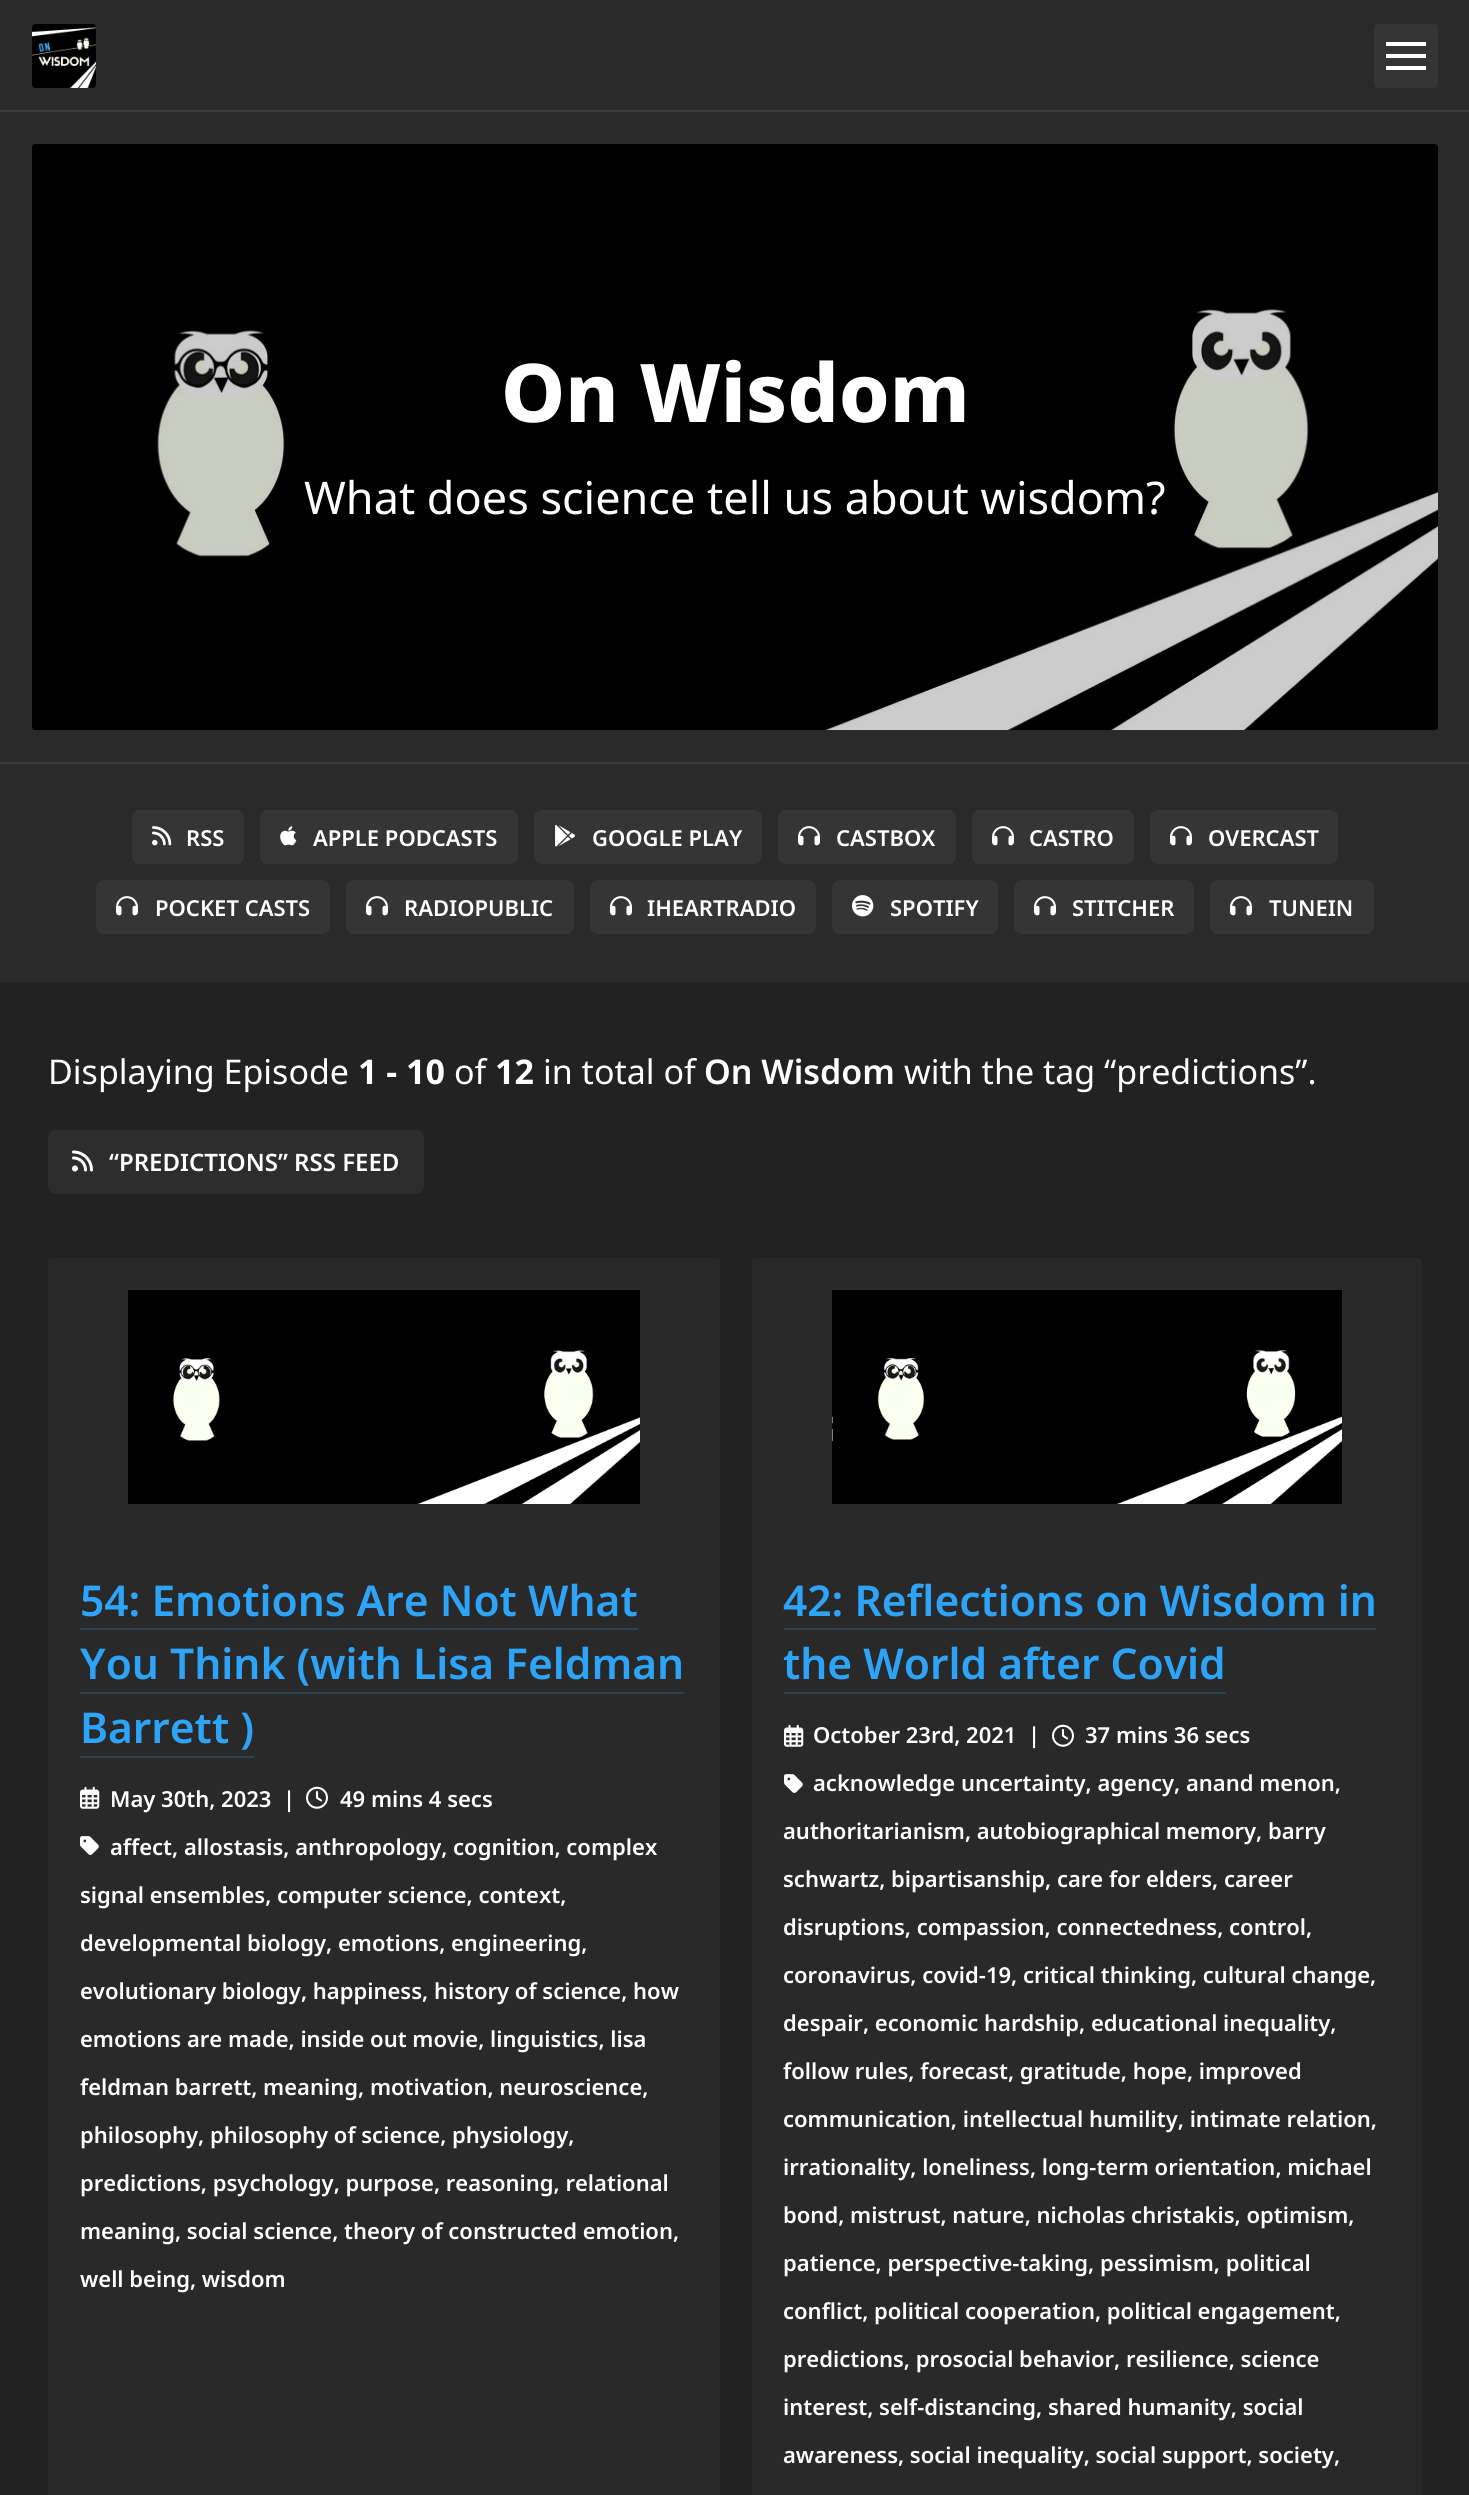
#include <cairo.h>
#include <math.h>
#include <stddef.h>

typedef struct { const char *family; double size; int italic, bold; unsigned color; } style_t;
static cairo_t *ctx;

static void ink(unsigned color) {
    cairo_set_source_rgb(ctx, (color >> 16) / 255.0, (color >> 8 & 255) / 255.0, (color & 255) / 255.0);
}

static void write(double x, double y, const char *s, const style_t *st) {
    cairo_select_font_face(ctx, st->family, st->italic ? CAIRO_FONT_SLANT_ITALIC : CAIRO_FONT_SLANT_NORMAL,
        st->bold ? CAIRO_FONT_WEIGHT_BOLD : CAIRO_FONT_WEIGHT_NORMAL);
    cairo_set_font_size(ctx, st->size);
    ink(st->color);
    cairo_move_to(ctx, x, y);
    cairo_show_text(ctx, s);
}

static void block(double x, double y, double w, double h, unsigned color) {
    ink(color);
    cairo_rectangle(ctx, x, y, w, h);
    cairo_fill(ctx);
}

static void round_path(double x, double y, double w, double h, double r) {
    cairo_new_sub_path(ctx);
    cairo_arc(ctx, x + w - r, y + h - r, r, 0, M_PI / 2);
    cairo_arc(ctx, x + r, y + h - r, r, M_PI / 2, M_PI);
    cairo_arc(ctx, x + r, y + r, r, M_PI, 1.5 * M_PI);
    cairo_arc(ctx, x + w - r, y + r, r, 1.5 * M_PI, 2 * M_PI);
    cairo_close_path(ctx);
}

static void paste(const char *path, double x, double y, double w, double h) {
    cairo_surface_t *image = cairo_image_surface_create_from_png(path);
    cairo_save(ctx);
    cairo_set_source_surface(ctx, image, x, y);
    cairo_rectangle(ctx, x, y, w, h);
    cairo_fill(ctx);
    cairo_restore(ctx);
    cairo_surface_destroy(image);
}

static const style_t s1 = {"Noto Sans ExtraBold", 81, 0, 0, 0xffffff};
static const style_t s2 = {"Noto Sans", 45, 0, 0, 0xffffff};
static const style_t s3 = {"Noto Sans SemiBold", 22, 0, 0, 0xffffff};
static const style_t s4 = {"Noto Sans", 34, 0, 0, 0xffffff};
static const style_t s5 = {"Noto Sans", 34, 0, 1, 0xffffff};
static const style_t s6 = {"Noto Sans SemiBold", 34, 0, 0, 0xffffff};
static const style_t s7 = {"Noto Sans SemiBold", 24, 0, 0, 0xffffff};
static const style_t s8 = {"Noto Sans SemiBold", 42.5, 0, 0, 0x2ea4f9};

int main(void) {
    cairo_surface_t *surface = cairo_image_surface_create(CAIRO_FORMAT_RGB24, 1469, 2495);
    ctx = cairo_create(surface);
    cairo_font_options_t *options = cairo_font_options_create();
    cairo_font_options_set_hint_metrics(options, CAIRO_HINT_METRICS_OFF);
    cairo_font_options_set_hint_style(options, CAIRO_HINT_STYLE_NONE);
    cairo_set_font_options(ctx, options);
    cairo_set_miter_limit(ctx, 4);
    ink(0x222222);
    cairo_paint(ctx);
    block(0, 0, 1469, 110, 0x2a2a2a);
    block(0, 110, 1469, 2, 0x3b3b3b);
    paste("pic1.png", 32, 24, 64, 64);
    ink(0x353535);
    round_path(1374, 24, 64, 64, 4);
    cairo_fill(ctx);
    block(1386, 42, 40, 4, 0xffffff);
    block(1386, 54, 40, 4, 0xffffff);
    block(1386, 66, 40, 4, 0xffffff);
    block(0, 112, 1469, 650, 0x2a2a2a);
    block(32, 144, 1406, 586, 0x222222);
    paste("pic2.png", 32, 144, 1406, 586);
    write(501, 422, "On Wisdom", &s1);
    write(304, 514, "What does science tell us about wisdom?", &s2);
    block(0, 764, 1469, 218, 0x2a2a2a);
    block(0, 762, 1469, 2, 0x3b3b3b);
    ink(0x353535);
    round_path(132, 810, 112, 54, 8);
    cairo_fill(ctx);
    paste("pic3.png", 152, 826, 20, 20);
    write(186, 846, "RSS", &s3);
    ink(0x353535);
    round_path(260, 810, 258, 54, 8);
    cairo_fill(ctx);
    paste("pic4.png", 280, 826, 17, 20);
    write(313, 846, "APPLE PODCASTS", &s3);
    ink(0x353535);
    round_path(534, 810, 228, 54, 8);
    cairo_fill(ctx);
    paste("pic5.png", 555, 824, 20, 23);
    write(592, 846, "GOOGLE PLAY", &s3);
    ink(0x353535);
    round_path(778, 810, 178, 54, 8);
    cairo_fill(ctx);
    paste("pic6.png", 798, 826, 22, 20);
    write(836, 846, "CASTBOX", &s3);
    ink(0x353535);
    round_path(972, 810, 162, 54, 8);
    cairo_fill(ctx);
    paste("pic6.png", 992, 826, 22, 20);
    write(1029, 846, "CASTRO", &s3);
    ink(0x353535);
    round_path(1150, 810, 188, 54, 8);
    cairo_fill(ctx);
    paste("pic6.png", 1170, 826, 22, 20);
    write(1208, 846, "OVERCAST", &s3);
    ink(0x353535);
    round_path(96, 880, 234, 54, 8);
    cairo_fill(ctx);
    paste("pic6.png", 116, 896, 22, 20);
    write(155, 916, "POCKET CASTS", &s3);
    ink(0x353535);
    round_path(346, 880, 228, 54, 8);
    cairo_fill(ctx);
    paste("pic6.png", 366, 896, 22, 20);
    write(404, 916, "RADIOPUBLIC", &s3);
    ink(0x353535);
    round_path(590, 880, 226, 54, 8);
    cairo_fill(ctx);
    paste("pic6.png", 610, 896, 22, 20);
    write(647, 916, "IHEARTRADIO", &s3);
    ink(0x353535);
    round_path(832, 880, 166, 54, 8);
    cairo_fill(ctx);
    paste("pic7.png", 852, 895, 22, 22);
    write(890, 916, "SPOTIFY", &s3);
    ink(0x353535);
    round_path(1014, 880, 180, 54, 8);
    cairo_fill(ctx);
    paste("pic6.png", 1034, 896, 22, 20);
    write(1072, 916, "STITCHER", &s3);
    ink(0x353535);
    round_path(1210, 880, 164, 54, 8);
    cairo_fill(ctx);
    paste("pic6.png", 1230, 896, 22, 20);
    write(1269, 916, "TUNEIN", &s3);
    write(48, 1084, "Displaying Episode", &s4);
    write(358, 1084, "1 - 10", &s5);
    write(454, 1084, "of", &s4);
    write(495, 1084, "12", &s5);
    write(543, 1084, "in total of", &s4);
    write(704, 1084, "On Wisdom", &s6);
    write(904, 1084, "with the tag “predictions”.", &s4);
    ink(0x2d2d2d);
    round_path(48, 1130, 376, 64, 8);
    cairo_fill(ctx);
    paste("pic8.png", 72, 1150, 21, 22);
    write(109, 1171, "“PREDICTIONS” RSS FEED", &s7);
    ink(0x292929);
    round_path(48, 1258, 672, 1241, 4);
    cairo_fill(ctx);
    paste("pic9.png", 128, 1290, 512, 214);
    write(80, 1616, "54: Emotions Are Not What", &s8);
    block(80, 1628, 558, 2, 0x2a4253);
    write(80, 1679, "You Think (with Lisa Feldman", &s8);
    block(80, 1692, 604, 2, 0x2a4253);
    write(80, 1743, "Barrett )", &s8);
    block(80, 1756, 174, 2, 0x2a4253);
    paste("pic10.png", 80, 1786, 20, 23);
    write(110, 1807, "May 30th, 2023", &s3);
    write(283, 1807, "|", &s3);
    paste("pic11.png", 306, 1786, 22, 23);
    write(340, 1807, "49 mins 4 secs", &s3);
    paste("pic12.png", 80, 1836, 19, 19);
    write(110, 1855, "affect, allostasis, anthropology, cognition, complex", &s3);
    write(80, 1903, "signal ensembles, computer science, context,", &s3);
    write(80, 1951, "developmental biology, emotions, engineering,", &s3);
    write(80, 1999, "evolutionary biology, happiness, history of science, how", &s3);
    write(80, 2047, "emotions are made, inside out movie, linguistics, lisa", &s3);
    write(80, 2095, "feldman barrett, meaning, motivation, neuroscience,", &s3);
    write(80, 2143, "philosophy, philosophy of science, physiology,", &s3);
    write(80, 2191, "predictions, psychology, purpose, reasoning, relational", &s3);
    write(80, 2239, "meaning, social science, theory of constructed emotion,", &s3);
    write(80, 2287, "well being, wisdom", &s3);
    ink(0x292929);
    round_path(752, 1258, 670, 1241, 4);
    cairo_fill(ctx);
    paste("pic13.png", 832, 1290, 510, 214);
    write(783, 1616, "42: Reflections on Wisdom in", &s8);
    block(784, 1628, 592, 2, 0x2a4253);
    write(783, 1679, "the World after Covid", &s8);
    block(784, 1692, 442, 2, 0x2a4253);
    paste("pic10.png", 784, 1724, 20, 23);
    write(813, 1743, "October 23rd, 2021", &s3);
    write(1028, 1743, "|", &s3);
    paste("pic11.png", 1052, 1724, 22, 23);
    write(1085, 1743, "37 mins 36 secs", &s3);
    paste("pic12.png", 784, 1774, 19, 19);
    write(813, 1791, "acknowledge uncertainty, agency, anand menon,", &s3);
    write(783, 1839, "authoritarianism, autobiographical memory, barry", &s3);
    write(783, 1887, "schwartz, bipartisanship, care for elders, career", &s3);
    write(783, 1935, "disruptions, compassion, connectedness, control,", &s3);
    write(783, 1983, "coronavirus, covid-19, critical thinking, cultural change,", &s3);
    write(783, 2031, "despair, economic hardship, educational inequality,", &s3);
    write(783, 2079, "follow rules, forecast, gratitude, hope, improved", &s3);
    write(783, 2127, "communication, intellectual humility, intimate relation,", &s3);
    write(783, 2175, "irrationality, loneliness, long-term orientation, michael", &s3);
    write(783, 2223, "bond, mistrust, nature, nicholas christakis, optimism,", &s3);
    write(783, 2271, "patience, perspective-taking, pessimism, political", &s3);
    write(783, 2319, "conflict, political cooperation, political engagement,", &s3);
    write(783, 2367, "predictions, prosocial behavior, resilience, science", &s3);
    write(783, 2415, "interest, self-distancing, shared humanity, social", &s3);
    write(783, 2463, "awareness, social inequality, social support, society,", &s3);
    cairo_surface_write_to_png(surface, "screenshot.png");
    cairo_font_options_destroy(options);
    cairo_destroy(ctx);
    cairo_surface_destroy(surface);
    return 0;
}
